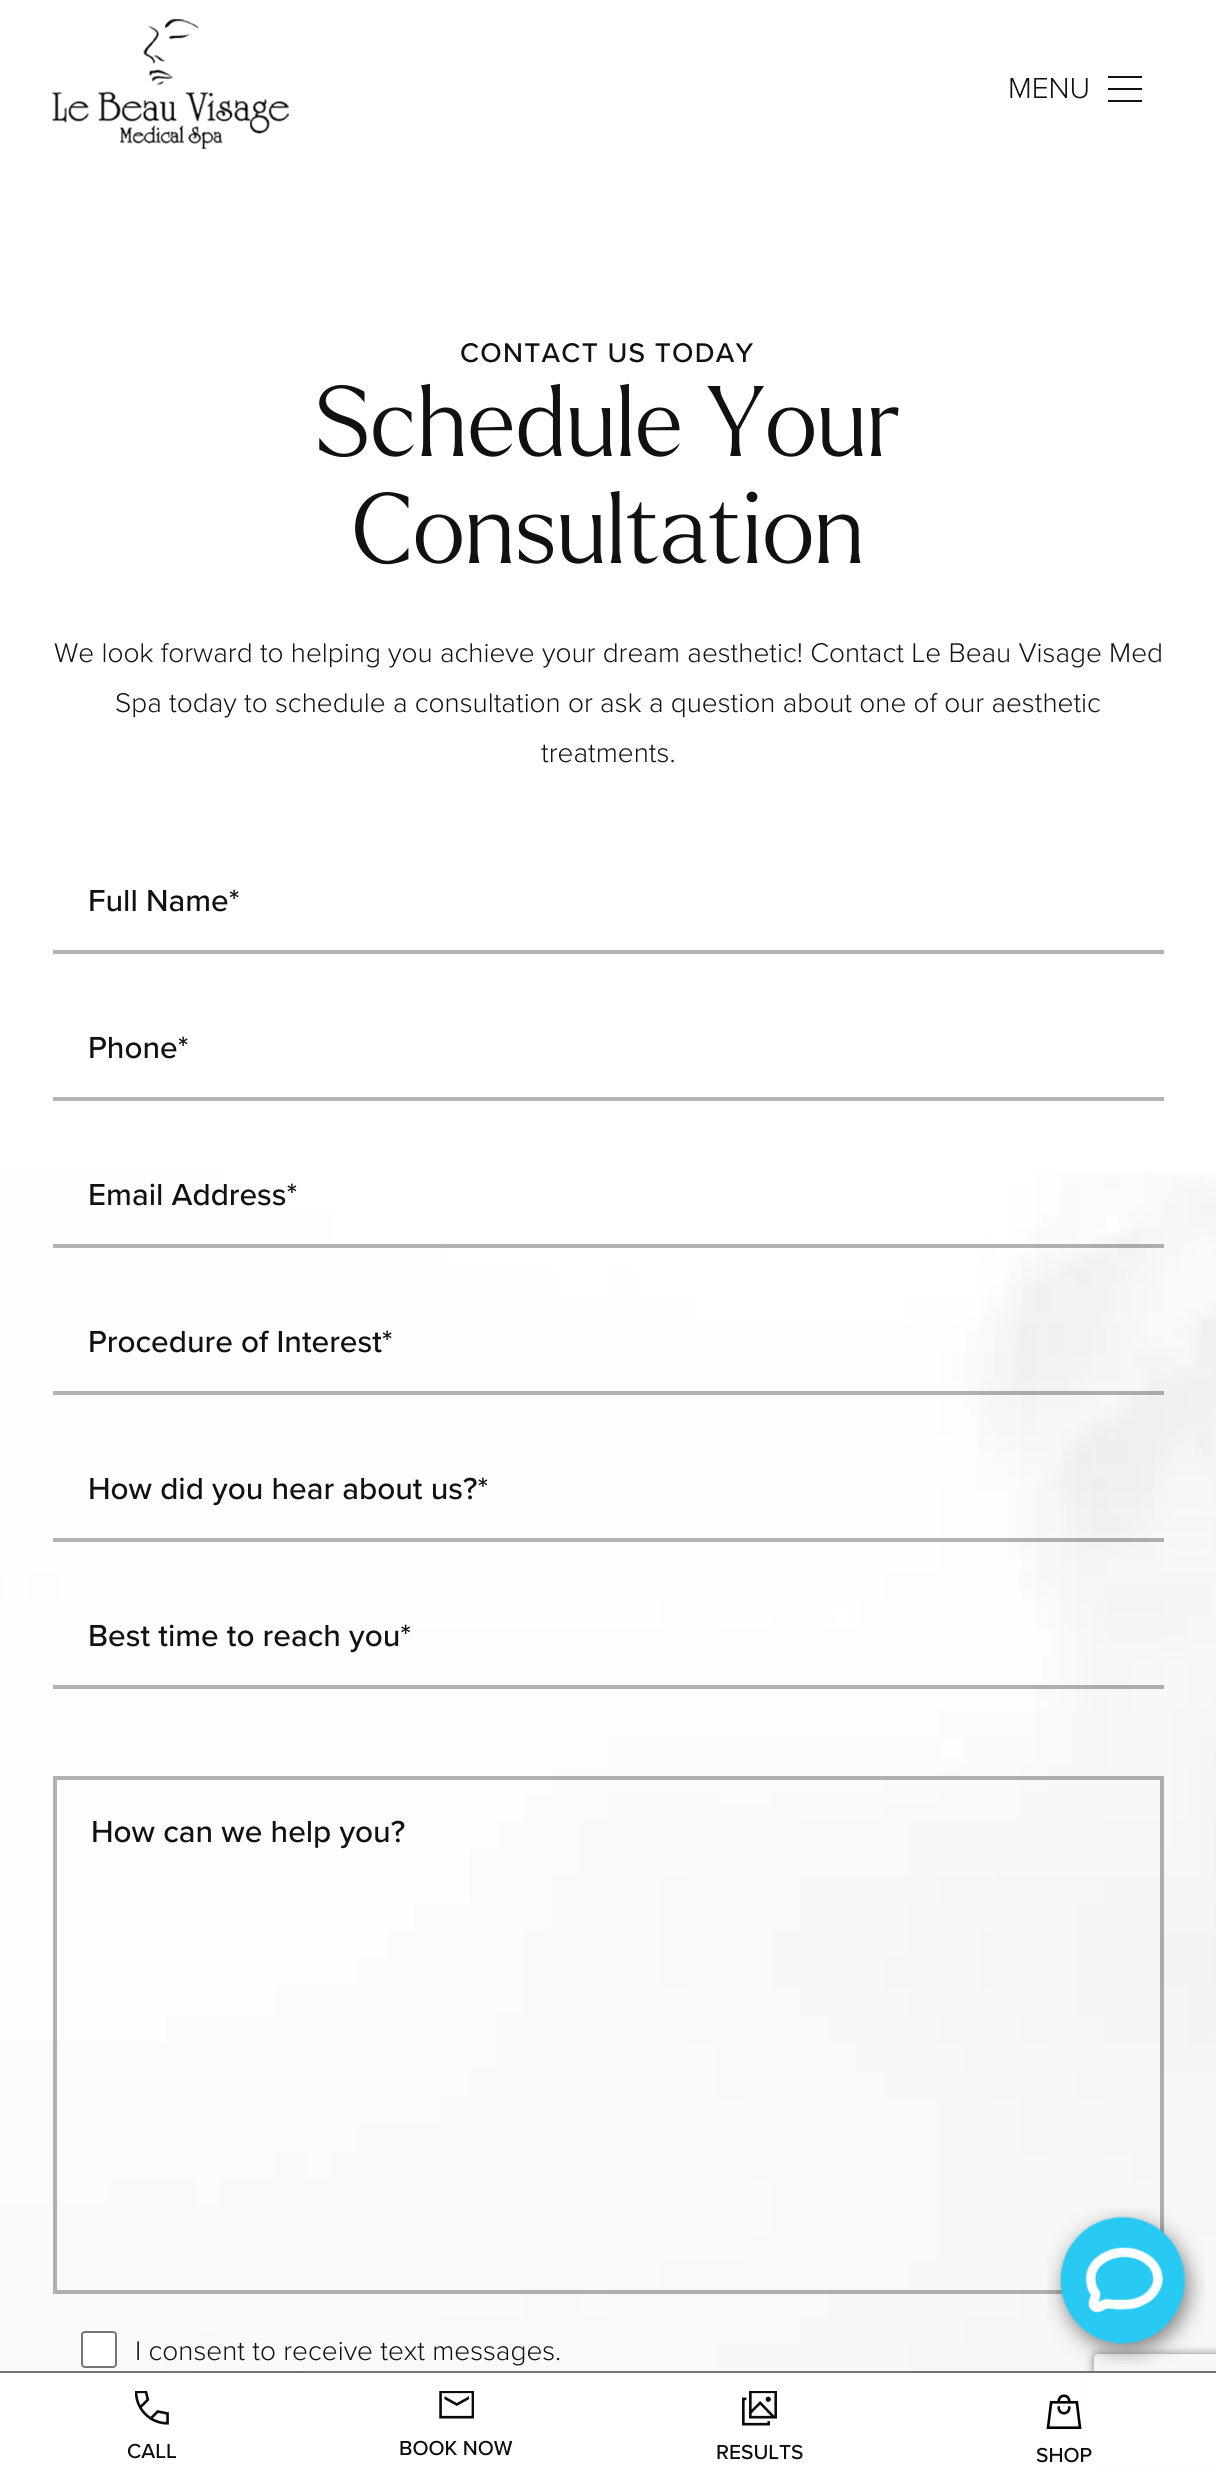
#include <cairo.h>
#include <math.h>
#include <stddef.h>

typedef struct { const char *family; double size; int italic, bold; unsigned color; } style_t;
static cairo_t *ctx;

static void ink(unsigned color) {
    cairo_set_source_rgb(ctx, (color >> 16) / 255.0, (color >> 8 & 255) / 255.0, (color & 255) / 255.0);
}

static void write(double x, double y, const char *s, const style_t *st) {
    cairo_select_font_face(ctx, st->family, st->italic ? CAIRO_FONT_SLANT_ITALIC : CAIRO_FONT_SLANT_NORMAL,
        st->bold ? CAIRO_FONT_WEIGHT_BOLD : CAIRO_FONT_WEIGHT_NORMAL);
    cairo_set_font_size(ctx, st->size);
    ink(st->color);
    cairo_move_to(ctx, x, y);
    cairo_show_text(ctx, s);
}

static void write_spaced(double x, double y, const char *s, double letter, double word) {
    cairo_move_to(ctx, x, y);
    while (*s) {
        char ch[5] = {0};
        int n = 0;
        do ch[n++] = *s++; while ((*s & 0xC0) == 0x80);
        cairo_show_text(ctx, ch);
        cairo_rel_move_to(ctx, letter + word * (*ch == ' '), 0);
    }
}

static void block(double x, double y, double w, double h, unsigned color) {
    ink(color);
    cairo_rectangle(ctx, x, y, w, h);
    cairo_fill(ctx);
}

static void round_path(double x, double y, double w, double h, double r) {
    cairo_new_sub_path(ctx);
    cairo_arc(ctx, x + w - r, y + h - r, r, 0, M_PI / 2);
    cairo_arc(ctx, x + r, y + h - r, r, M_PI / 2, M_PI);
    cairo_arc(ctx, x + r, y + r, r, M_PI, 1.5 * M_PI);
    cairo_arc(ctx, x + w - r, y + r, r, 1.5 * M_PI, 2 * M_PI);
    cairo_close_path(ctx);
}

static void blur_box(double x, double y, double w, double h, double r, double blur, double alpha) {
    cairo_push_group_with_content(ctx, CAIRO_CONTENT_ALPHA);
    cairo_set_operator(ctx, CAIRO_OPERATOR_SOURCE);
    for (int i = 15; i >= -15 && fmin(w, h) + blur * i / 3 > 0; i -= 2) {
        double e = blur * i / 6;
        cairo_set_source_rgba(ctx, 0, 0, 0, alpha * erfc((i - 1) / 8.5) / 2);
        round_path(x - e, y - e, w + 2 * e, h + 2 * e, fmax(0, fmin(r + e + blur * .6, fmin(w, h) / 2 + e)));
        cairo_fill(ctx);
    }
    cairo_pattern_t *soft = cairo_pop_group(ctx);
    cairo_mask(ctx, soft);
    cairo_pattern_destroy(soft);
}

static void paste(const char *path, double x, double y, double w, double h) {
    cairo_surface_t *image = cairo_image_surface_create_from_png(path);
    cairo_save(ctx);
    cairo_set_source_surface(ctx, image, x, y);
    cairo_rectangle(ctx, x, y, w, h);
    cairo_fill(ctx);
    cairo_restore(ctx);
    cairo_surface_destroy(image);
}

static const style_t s1 = {"Proxima Nova Light", 30, 0, 0, 0x111111};
static const style_t s2 = {"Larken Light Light", 97.25, 0, 0, 0x111111};
static const style_t s3 = {"Proxima Nova Light", 28, 0, 0, 0x111111};
static const style_t s4 = {"Proxima Nova Medium", 31.5, 0, 0, 0x111111};
static const style_t s5 = {"Proxima Nova Medium", 21, 0, 0, 0x0a0a0a};

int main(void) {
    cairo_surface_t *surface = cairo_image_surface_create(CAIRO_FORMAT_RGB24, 1216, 2482);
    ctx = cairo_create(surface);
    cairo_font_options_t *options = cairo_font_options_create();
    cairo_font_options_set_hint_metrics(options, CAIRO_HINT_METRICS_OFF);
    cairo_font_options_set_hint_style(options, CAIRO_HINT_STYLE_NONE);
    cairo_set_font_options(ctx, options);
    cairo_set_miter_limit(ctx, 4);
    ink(0xffffff);
    cairo_paint(ctx);
    paste("pic1.png", 0, 1171, 1216, 1200);
    paste("pic2.png", 52, 19, 237, 130);
    write(1008, 98, "MENU", &s1);
    block(1108, 76, 34, 2, 0x111111);
    block(1108, 88, 34, 2, 0x111111);
    block(1108, 100, 34, 2, 0x111111);
    cairo_select_font_face(ctx, "Proxima Nova Medium", CAIRO_FONT_SLANT_NORMAL, CAIRO_FONT_WEIGHT_NORMAL);
    cairo_set_font_size(ctx, 28);
    write_spaced(460, 362, "CONTACT US TODAY", 1.25, 0);
    write(315, 456, "Schedule Your", &s2);
    write(352, 563, "Consultation", &s2);
    write(54, 662, "We look forward to helping you achieve your dream aesthetic! Contact Le Beau Visage Med", &s3);
    write(115, 712, "Spa today to schedule a consultation or ask a question about one of our aesthetic", &s3);
    write(541, 762, "treatments.", &s3);
    block(53, 950, 1111, 4, 0xb3b3b3);
    write(88, 911, "Full Name*", &s4);
    block(53, 1097, 1111, 4, 0xb3b3b3);
    write(88, 1058, "Phone*", &s4);
    cairo_set_source_rgba(ctx, 0, 0, 0, 0.3);
    cairo_rectangle(ctx, 53, 1244, 1111, 4);
    cairo_fill(ctx);
    write(88, 1205, "Email Address*", &s4);
    cairo_set_source_rgba(ctx, 0, 0, 0, 0.3);
    cairo_rectangle(ctx, 53, 1391, 1111, 4);
    cairo_fill(ctx);
    write(88, 1352, "Procedure of Interest*", &s4);
    cairo_set_source_rgba(ctx, 0, 0, 0, 0.3);
    cairo_rectangle(ctx, 53, 1538, 1111, 4);
    cairo_fill(ctx);
    write(88, 1499, "How did you hear about us?*", &s4);
    cairo_set_source_rgba(ctx, 0, 0, 0, 0.3);
    cairo_rectangle(ctx, 53, 1685, 1111, 4);
    cairo_fill(ctx);
    write(88, 1646, "Best time to reach you*", &s4);
    cairo_rectangle(ctx, 55, 1778, 1107, 514);
    cairo_set_source_rgba(ctx, 0, 0, 0, 0.3);
    cairo_set_line_width(ctx, 4);
    cairo_stroke(ctx);
    write(91, 1842, "How can we help you?", &s4);
    ink(0xffffff);
    round_path(82, 2332, 34, 35, 3);
    cairo_fill_preserve(ctx);
    ink(0x767676);
    cairo_set_line_width(ctx, 2);
    cairo_stroke(ctx);
    write(135, 2360, "I consent to receive text messages.", &s3);
    cairo_save(ctx);
    cairo_set_fill_rule(ctx, CAIRO_FILL_RULE_EVEN_ODD);
    cairo_new_path(ctx);
    cairo_move_to(ctx, 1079, 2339);
    cairo_line_to(ctx, 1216, 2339);
    cairo_line_to(ctx, 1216, 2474);
    cairo_line_to(ctx, 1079, 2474);
    cairo_close_path(ctx);
    cairo_move_to(ctx, 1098, 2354);
    cairo_line_to(ctx, 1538, 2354);
    cairo_curve_to(ctx, 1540, 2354, 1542, 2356, 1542, 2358);
    cairo_line_to(ctx, 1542, 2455);
    cairo_curve_to(ctx, 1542, 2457, 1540, 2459, 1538, 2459);
    cairo_line_to(ctx, 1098, 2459);
    cairo_curve_to(ctx, 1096, 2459, 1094, 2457, 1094, 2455);
    cairo_line_to(ctx, 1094, 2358);
    cairo_curve_to(ctx, 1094, 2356, 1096, 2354, 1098, 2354);
    cairo_close_path(ctx);
    cairo_clip(ctx);
    ink(0x808080);
    blur_box(1094, 2354, 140, 105, 4, 4.5, 1);
    cairo_restore(ctx);
    paste("pic3.png", 1047, 2208, 158, 159);
    block(0, 2371, 1216, 2, 0x6a776c);
    paste("pic4.png", 135, 2391, 34, 34);
    write(127, 2458, "CALL", &s5);
    paste("pic5.png", 439, 2391, 35, 28);
    write(399, 2455, "BOOK NOW", &s5);
    paste("pic6.png", 742, 2391, 35, 35);
    write(716, 2459, "RESULTS", &s5);
    block(1085, 2373, 131, 95, 0xffffff);
    paste("pic7.png", 1046, 2394, 36, 35);
    write(1036, 2462, "SHOP", &s5);
    cairo_surface_write_to_png(surface, "screenshot.png");
    cairo_font_options_destroy(options);
    cairo_destroy(ctx);
    cairo_surface_destroy(surface);
    return 0;
}
